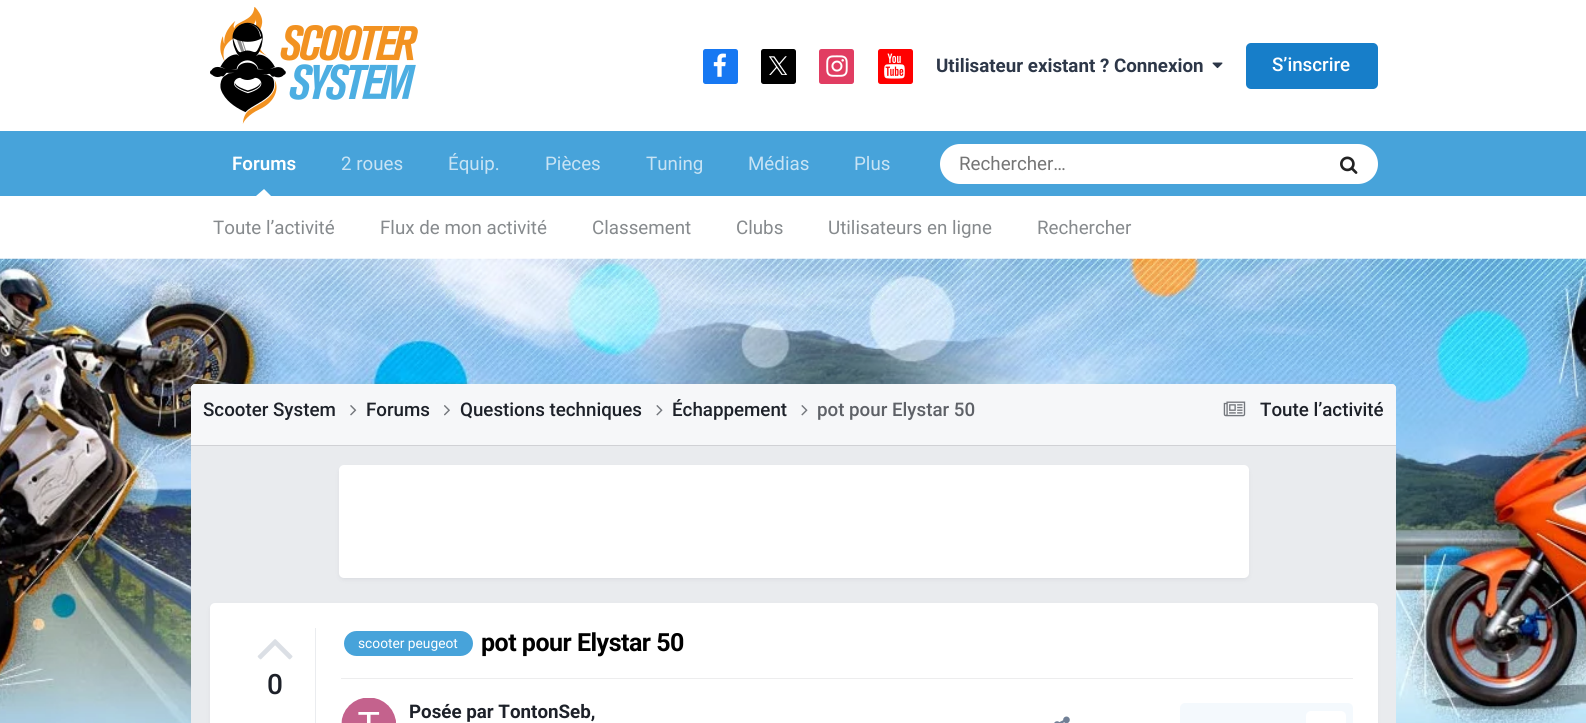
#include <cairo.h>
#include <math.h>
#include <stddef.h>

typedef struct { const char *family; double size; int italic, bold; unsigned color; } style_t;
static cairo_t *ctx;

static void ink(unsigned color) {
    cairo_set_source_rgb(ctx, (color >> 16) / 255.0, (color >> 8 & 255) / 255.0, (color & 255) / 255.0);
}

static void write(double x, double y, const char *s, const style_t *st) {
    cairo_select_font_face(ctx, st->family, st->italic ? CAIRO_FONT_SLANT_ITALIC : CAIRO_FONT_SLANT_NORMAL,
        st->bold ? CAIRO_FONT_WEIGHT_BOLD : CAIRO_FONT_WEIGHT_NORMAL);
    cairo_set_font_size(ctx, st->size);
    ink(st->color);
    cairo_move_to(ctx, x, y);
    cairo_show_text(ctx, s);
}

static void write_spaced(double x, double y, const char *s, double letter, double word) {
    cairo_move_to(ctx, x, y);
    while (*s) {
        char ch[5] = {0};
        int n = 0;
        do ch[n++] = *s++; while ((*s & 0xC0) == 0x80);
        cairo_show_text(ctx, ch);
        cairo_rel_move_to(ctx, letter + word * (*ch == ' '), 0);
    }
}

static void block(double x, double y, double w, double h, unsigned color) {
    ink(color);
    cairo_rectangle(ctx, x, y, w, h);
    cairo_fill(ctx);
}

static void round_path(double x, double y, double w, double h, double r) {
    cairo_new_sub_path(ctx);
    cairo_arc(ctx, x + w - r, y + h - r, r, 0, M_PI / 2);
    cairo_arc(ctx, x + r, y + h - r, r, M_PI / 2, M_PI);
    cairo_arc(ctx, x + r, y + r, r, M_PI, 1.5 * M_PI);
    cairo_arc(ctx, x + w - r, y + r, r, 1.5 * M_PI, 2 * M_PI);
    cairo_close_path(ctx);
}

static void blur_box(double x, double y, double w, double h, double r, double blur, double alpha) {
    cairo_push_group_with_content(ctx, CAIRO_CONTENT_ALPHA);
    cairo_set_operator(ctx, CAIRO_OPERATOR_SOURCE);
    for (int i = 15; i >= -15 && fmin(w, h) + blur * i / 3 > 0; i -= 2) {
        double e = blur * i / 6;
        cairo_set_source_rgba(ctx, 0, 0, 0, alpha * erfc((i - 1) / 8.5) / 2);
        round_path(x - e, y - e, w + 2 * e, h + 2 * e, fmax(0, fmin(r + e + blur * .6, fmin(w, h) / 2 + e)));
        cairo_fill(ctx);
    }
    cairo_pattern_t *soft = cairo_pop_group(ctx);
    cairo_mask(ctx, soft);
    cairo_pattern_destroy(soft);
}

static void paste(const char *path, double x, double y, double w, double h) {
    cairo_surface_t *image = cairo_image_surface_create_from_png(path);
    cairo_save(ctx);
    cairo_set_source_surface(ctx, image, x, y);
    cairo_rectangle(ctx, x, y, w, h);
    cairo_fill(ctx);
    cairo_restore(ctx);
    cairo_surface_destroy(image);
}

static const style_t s1 = {"Roboto", 18.75, 0, 1, 0x2d3748};
static const style_t s2 = {"Roboto Medium", 18.75, 0, 0, 0xffffff};
static const style_t s3 = {"Roboto", 18.75, 0, 0, 0xc8e3f4};
static const style_t s4 = {"Roboto SemiBold", 18.75, 0, 0, 0xffffff};
static const style_t s5 = {"Roboto", 18.75, 0, 0, 0x868a8d};
static const style_t s6 = {"Roboto", 18.75, 0, 0, 0x757575};
static const style_t s7 = {"Roboto Medium", 18.75, 0, 0, 0x1d2129};
static const style_t s8 = {"Roboto Medium", 18.75, 0, 0, 0x5e6167};
static const style_t s9 = {"Roboto Medium", 28, 0, 0, 0x1d2129};
static const style_t s10 = {"Roboto", 13.75, 0, 0, 0xffffff};
static const style_t s11 = {"Roboto", 18.75, 0, 1, 0x1d2129};

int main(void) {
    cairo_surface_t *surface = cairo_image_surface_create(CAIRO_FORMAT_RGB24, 1586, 723);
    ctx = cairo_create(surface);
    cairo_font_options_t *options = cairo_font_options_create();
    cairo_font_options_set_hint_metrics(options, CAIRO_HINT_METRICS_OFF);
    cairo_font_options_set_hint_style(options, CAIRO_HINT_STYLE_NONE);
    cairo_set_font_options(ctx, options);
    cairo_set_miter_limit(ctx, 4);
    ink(0xffffff);
    cairo_paint(ctx);
    paste("pic1.png", 210, 7, 208, 117);
    ink(0x1778f2);
    round_path(703, 49, 35, 35, 2.5);
    cairo_fill(ctx);
    paste("pic2.png", 713, 53, 13, 24);
    ink(0x000000);
    round_path(761, 49, 35, 35, 2.5);
    cairo_fill(ctx);
    paste("pic3.png", 769, 56, 19, 19);
    ink(0xe13d62);
    round_path(819, 49, 35, 35, 2.5);
    cairo_fill(ctx);
    paste("pic4.png", 826, 55, 22, 22);
    ink(0xff0000);
    round_path(878, 49, 35, 35, 2.5);
    cairo_fill(ctx);
    paste("pic5.png", 884, 53, 21, 26);
    write(936, 72, "Utilisateur existant ? Connexion", &s1);
    paste("pic6.png", 1212, 62, 11, 7);
    ink(0x177ec9);
    round_path(1246, 43, 132, 46, 5);
    cairo_fill(ctx);
    write(1272, 71, "S’inscrire", &s2);
    block(0, 131, 1586, 65, 0x47a3da);
    write(448, 170, "Équip.", &s3);
    write(545, 170, "Pièces", &s3);
    write(748, 170, "Médias", &s3);
    write(854, 170, "Plus", &s3);
    write(232, 170, "Forums", &s4);
    cairo_new_path(ctx);
    cairo_move_to(ctx, 271, 196);
    cairo_line_to(ctx, 256, 196);
    cairo_line_to(ctx, 264, 189);
    cairo_close_path(ctx);
    cairo_fill(ctx);
    write(213, 234, "Toute l’activité", &s5);
    write(380, 234, "Flux de mon activité", &s5);
    write(592, 234, "Classement", &s5);
    write(736, 234, "Clubs", &s5);
    write(828, 234, "Utilisateurs en ligne", &s5);
    write(1037, 234, "Rechercher", &s5);
    write(341, 170, "2 roues", &s3);
    write(646, 170, "Tuning", &s3);
    ink(0xffffff);
    round_path(940, 144, 438, 40, 20);
    cairo_fill(ctx);
    write(959, 170, "Rechercher…", &s6);
    paste("pic7.png", 1340, 156, 18, 18);
    paste("pic8.png", 0, 258, 1586, 465);
    ink(0xe9ebee);
    round_path(191, 384, 1205, 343, 4);
    cairo_fill(ctx);
    ink(0xf6f7f9);
    cairo_new_path(ctx);
    cairo_move_to(ctx, 195, 384);
    cairo_line_to(ctx, 1392, 384);
    cairo_curve_to(ctx, 1394, 384, 1396, 386, 1396, 388);
    cairo_line_to(ctx, 1396, 446);
    cairo_line_to(ctx, 191, 446);
    cairo_line_to(ctx, 191, 388);
    cairo_curve_to(ctx, 191, 386, 193, 384, 195, 384);
    cairo_close_path(ctx);
    cairo_fill(ctx);
    block(191, 445, 1205, 1, 0xd0d1d5);
    write(203, 416, "Scooter System", &s7);
    paste("pic9.png", 350, 405, 7, 11);
    write(366, 416, "Forums", &s7);
    paste("pic10.png", 444, 405, 6, 11);
    write(460, 416, "Questions techniques", &s7);
    paste("pic11.png", 656, 405, 7, 11);
    write(672, 416, "Échappement", &s7);
    paste("pic11.png", 801, 405, 7, 11);
    write(817, 416, "pot pour Elystar 50", &s8);
    paste("pic12.png", 1223, 401, 23, 16);
    write(1260, 416, "Toute l’activité", &s7);
    ink(0x2d3748);
    blur_box(340, 469, 908, 110, 4, 2.5, 0.1);
    ink(0xffffff);
    round_path(339, 465, 910, 113, 5);
    cairo_fill(ctx);
    ink(0x2d3748);
    blur_box(211, 606, 1165, 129, 4, 2.5, 0.1);
    ink(0xffffff);
    round_path(210, 603, 1168, 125, 5);
    cairo_fill(ctx);
    block(315, 628, 1, 95, 0xeaecef);
    paste("pic13.png", 257, 639, 36, 21);
    write(267, 694, "0", &s9);
    ink(0x47a3da);
    round_path(344, 631, 129, 25, 12.5);
    cairo_fill(ctx);
    write(358, 648, "scooter peugeot", &s10);
    cairo_select_font_face(ctx, "Roboto", CAIRO_FONT_SLANT_NORMAL, CAIRO_FONT_WEIGHT_BOLD);
    cairo_set_font_size(ctx, 25);
    ink(0x000000);
    write_spaced(481, 651, "pot pour Elystar 50", -0.5, 0);
    block(341, 678, 1012, 1, 0xededee);
    paste("pic14.png", 341, 698, 55, 25);
    write(409, 718, "Posée par TontonSeb,", &s11);
    paste("pic15.png", 1054, 716, 16, 7);
    ink(0xf4f9fd);
    round_path(1180, 703, 173, 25, 5);
    cairo_fill(ctx);
    ink(0xffffff);
    round_path(1306, 711, 40, 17, 5);
    cairo_fill(ctx);
    cairo_surface_write_to_png(surface, "screenshot.png");
    cairo_font_options_destroy(options);
    cairo_destroy(ctx);
    cairo_surface_destroy(surface);
    return 0;
}
